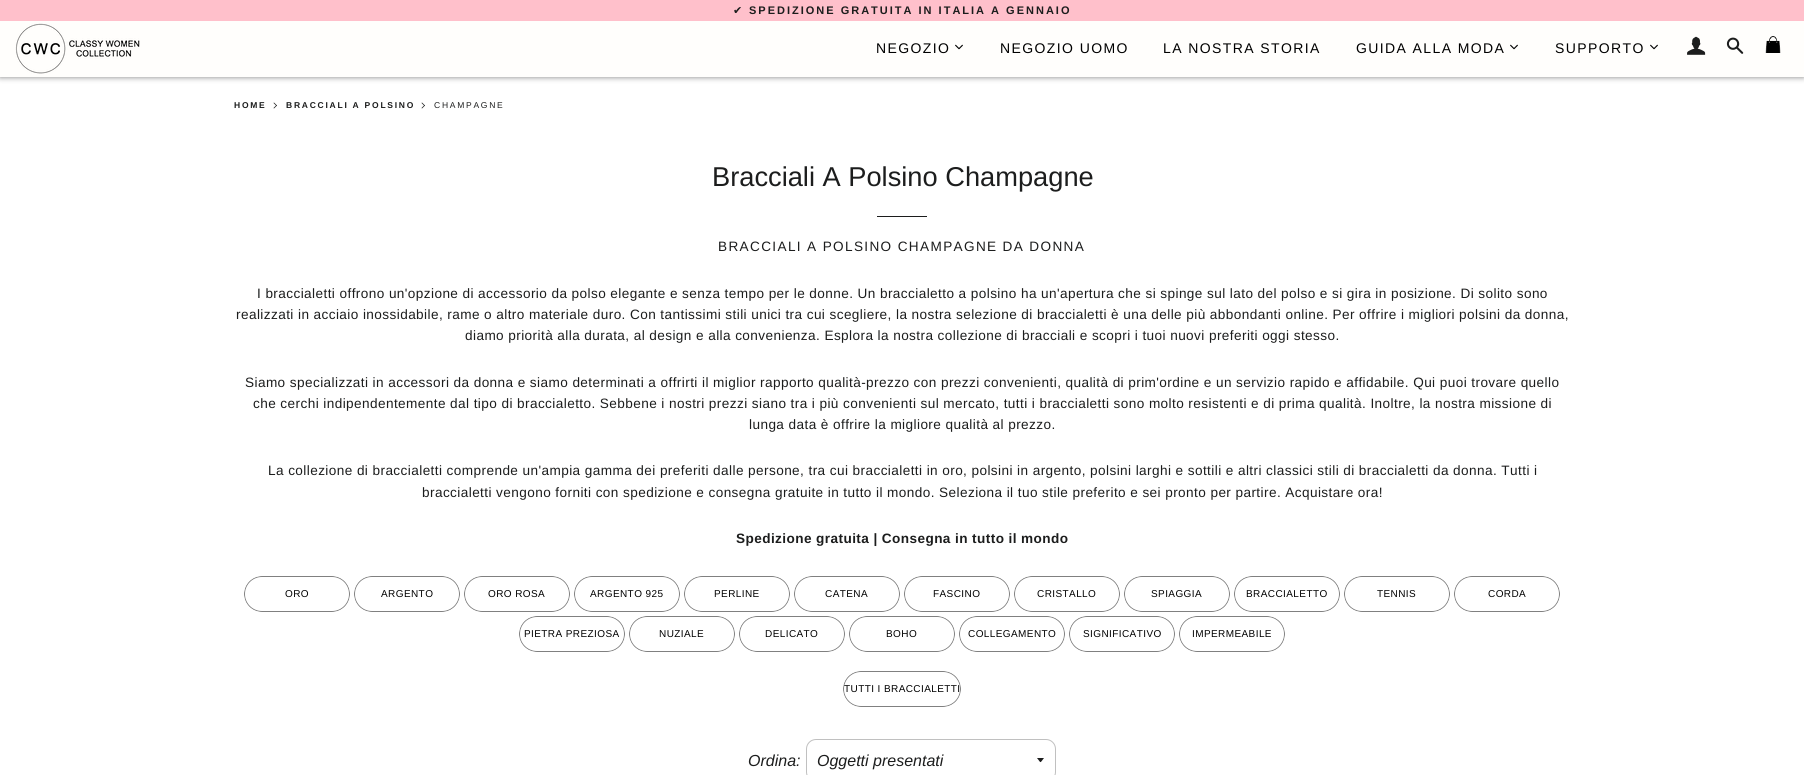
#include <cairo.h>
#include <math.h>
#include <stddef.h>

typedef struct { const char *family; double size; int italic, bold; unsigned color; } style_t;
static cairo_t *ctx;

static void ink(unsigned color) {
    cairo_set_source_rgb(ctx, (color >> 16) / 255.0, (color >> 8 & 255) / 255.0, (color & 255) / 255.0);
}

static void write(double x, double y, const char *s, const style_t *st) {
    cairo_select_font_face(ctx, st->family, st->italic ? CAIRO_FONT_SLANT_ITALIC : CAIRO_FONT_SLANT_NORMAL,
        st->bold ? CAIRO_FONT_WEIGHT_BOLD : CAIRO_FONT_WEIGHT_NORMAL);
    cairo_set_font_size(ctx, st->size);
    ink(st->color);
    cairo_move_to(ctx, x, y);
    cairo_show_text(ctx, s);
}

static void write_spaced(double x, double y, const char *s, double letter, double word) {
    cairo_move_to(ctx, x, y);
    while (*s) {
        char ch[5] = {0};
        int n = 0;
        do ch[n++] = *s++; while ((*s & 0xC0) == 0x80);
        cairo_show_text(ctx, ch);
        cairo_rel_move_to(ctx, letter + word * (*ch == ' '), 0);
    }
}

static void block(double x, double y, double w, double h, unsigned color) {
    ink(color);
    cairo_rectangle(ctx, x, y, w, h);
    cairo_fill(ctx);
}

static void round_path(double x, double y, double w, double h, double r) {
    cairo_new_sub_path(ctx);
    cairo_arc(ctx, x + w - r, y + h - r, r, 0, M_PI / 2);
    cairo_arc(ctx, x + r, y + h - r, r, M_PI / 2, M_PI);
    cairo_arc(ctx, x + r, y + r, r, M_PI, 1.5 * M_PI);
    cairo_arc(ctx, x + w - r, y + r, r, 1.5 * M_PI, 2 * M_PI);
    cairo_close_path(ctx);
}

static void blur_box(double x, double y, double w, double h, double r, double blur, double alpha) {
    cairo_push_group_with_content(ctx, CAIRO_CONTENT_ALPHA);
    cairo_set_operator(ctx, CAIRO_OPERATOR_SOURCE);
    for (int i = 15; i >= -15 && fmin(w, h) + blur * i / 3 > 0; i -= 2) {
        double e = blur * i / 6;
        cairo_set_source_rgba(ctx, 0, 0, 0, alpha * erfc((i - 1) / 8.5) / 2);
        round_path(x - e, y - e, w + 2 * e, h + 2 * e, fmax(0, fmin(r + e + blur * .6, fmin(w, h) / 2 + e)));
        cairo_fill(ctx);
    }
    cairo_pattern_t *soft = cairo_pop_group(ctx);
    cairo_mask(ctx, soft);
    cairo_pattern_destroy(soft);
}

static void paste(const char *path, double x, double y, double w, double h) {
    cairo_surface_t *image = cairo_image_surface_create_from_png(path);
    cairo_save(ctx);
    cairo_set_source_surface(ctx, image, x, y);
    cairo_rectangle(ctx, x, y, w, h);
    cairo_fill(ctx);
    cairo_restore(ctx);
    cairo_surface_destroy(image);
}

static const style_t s1 = {"Liberation Sans", 27.25, 0, 0, 0x1c1d1d};
static const style_t s2 = {"Liberation Sans", 16, 1, 0, 0x1c1d1d};

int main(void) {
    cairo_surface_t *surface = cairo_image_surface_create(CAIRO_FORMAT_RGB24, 1804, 775);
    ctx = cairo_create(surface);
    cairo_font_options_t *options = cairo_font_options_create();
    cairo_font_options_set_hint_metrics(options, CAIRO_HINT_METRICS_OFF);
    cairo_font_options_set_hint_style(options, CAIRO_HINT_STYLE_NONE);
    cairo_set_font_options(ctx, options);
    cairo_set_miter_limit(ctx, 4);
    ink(0xffffff);
    cairo_paint(ctx);
    ink(0x808080);
    blur_box(0, 0, 1804, 77, 0, 3, 1);
    block(0, 21, 1804, 56, 0xfffefc);
    block(0, 0, 1804, 21, 0xffc0cb);
    cairo_select_font_face(ctx, "DejaVu Sans", CAIRO_FONT_SLANT_NORMAL, CAIRO_FONT_WEIGHT_NORMAL);
    cairo_set_font_size(ctx, 11);
    ink(0x1c1d1d);
    write_spaced(733, 14, "✔", 2, 0);
    cairo_select_font_face(ctx, "Liberation Sans", CAIRO_FONT_SLANT_NORMAL, CAIRO_FONT_WEIGHT_BOLD);
    write_spaced(749, 14, "SPEDIZIONE GRATUITA IN ITALIA A GENNAIO", 2, 0);
    paste("pic1.png", 15, 23, 125, 51);
    cairo_select_font_face(ctx, "Liberation Sans", CAIRO_FONT_SLANT_NORMAL, CAIRO_FONT_WEIGHT_NORMAL);
    cairo_set_font_size(ctx, 14);
    ink(0x000000);
    write_spaced(876, 53, "NEGOZIO", 1.4, 0);
    paste("pic2.png", 955, 44, 8, 6);
    write_spaced(1000, 53, "NEGOZIO UOMO", 1.4, 0);
    write_spaced(1163, 53, "LA NOSTRA STORIA", 1.4, 0);
    write_spaced(1356, 53, "GUIDA ALLA MODA", 1.4, 0);
    paste("pic2.png", 1510, 44, 8, 6);
    write_spaced(1555, 53, "SUPPORTO", 1.4, 0);
    paste("pic2.png", 1650, 44, 8, 6);
    paste("pic3.png", 1687, 36, 19, 19);
    paste("pic4.png", 1726, 37, 18, 17);
    paste("pic5.png", 1765, 36, 16, 17);
    cairo_select_font_face(ctx, "Liberation Sans", CAIRO_FONT_SLANT_NORMAL, CAIRO_FONT_WEIGHT_BOLD);
    cairo_set_font_size(ctx, 8.5);
    ink(0x1c1d1d);
    write_spaced(234, 108, "HOME", 1.75, 0);
    cairo_new_path(ctx);
    cairo_move_to(ctx, 274, 102.5);
    cairo_line_to(ctx, 277, 105.5);
    cairo_line_to(ctx, 276.5, 106);
    cairo_line_to(ctx, 273.5, 103);
    cairo_close_path(ctx);
    cairo_fill(ctx);
    cairo_new_path(ctx);
    cairo_move_to(ctx, 276.5, 105);
    cairo_line_to(ctx, 277, 105.5);
    cairo_line_to(ctx, 274, 108.5);
    cairo_line_to(ctx, 273.5, 108);
    cairo_close_path(ctx);
    cairo_fill(ctx);
    write_spaced(286, 108, "BRACCIALI A POLSINO", 1.75, 0);
    cairo_new_path(ctx);
    cairo_move_to(ctx, 422, 102.5);
    cairo_line_to(ctx, 425, 105.5);
    cairo_line_to(ctx, 424.5, 106);
    cairo_line_to(ctx, 421.5, 103);
    cairo_close_path(ctx);
    cairo_fill(ctx);
    cairo_new_path(ctx);
    cairo_move_to(ctx, 424.5, 105);
    cairo_line_to(ctx, 425, 105.5);
    cairo_line_to(ctx, 422, 108.5);
    cairo_line_to(ctx, 421.5, 108);
    cairo_close_path(ctx);
    cairo_fill(ctx);
    cairo_select_font_face(ctx, "Liberation Sans", CAIRO_FONT_SLANT_NORMAL, CAIRO_FONT_WEIGHT_NORMAL);
    write_spaced(434, 108, "CHAMPAGNE", 1.75, 0);
    write(712, 186, "Bracciali A Polsino Champagne", &s1);
    block(877, 216, 50, 1, 0x1c1d1d);
    cairo_set_font_size(ctx, 13.6);
    write_spaced(718, 251, "BRACCIALI A POLSINO CHAMPAGNE DA DONNA", 1.35, 0);
    write_spaced(257, 298, "I braccialetti offrono un'opzione di accessorio da polso elegante e senza tempo per le donne. Un braccialetto a polsino ha un'apertura che si spinge sul lato del polso e si gira in posizione. Di solito sono", 0.41, 0);
    write_spaced(236, 319, "realizzati in acciaio inossidabile, rame o altro materiale duro. Con tantissimi stili unici tra cui scegliere, la nostra selezione di braccialetti è una delle più abbondanti online. Per offrire i migliori polsini da donna,", 0.41, 0);
    write_spaced(465, 340, "diamo priorità alla durata, al design e alla convenienza. Esplora la nostra collezione di bracciali e scopri i tuoi nuovi preferiti oggi stesso.", 0.41, 0);
    write_spaced(245, 387, "Siamo specializzati in accessori da donna e siamo determinati a offrirti il miglior rapporto qualità-prezzo con prezzi convenienti, qualità di prim'ordine e un servizio rapido e affidabile. Qui puoi trovare quello", 0.41, 0);
    write_spaced(253, 408, "che cerchi indipendentemente dal tipo di braccialetto. Sebbene i nostri prezzi siano tra i più convenienti sul mercato, tutti i braccialetti sono molto resistenti e di prima qualità. Inoltre, la nostra missione di", 0.41, 0);
    write_spaced(749, 429, "lunga data è offrire la migliore qualità al prezzo.", 0.41, 0);
    write_spaced(268, 475, "La collezione di braccialetti comprende un'ampia gamma dei preferiti dalle persone, tra cui braccialetti in oro, polsini in argento, polsini larghi e sottili e altri classici stili di braccialetti da donna. Tutti i", 0.41, 0);
    write_spaced(422, 497, "braccialetti vengono forniti con spedizione e consegna gratuite in tutto il mondo. Seleziona il tuo stile preferito e sei pronto per partire. Acquistare ora!", 0.41, 0);
    cairo_select_font_face(ctx, "Liberation Sans", CAIRO_FONT_SLANT_NORMAL, CAIRO_FONT_WEIGHT_BOLD);
    write_spaced(736, 543, "Spedizione gratuita | Consegna in tutto il mondo", 0.41, 0);
    round_path(244.5, 576.5, 105, 35, 17.5);
    ink(0x808080);
    cairo_set_line_width(ctx, 1);
    cairo_stroke(ctx);
    round_path(242, 574, 110, 40, 20);
    ink(0xffffff);
    cairo_set_line_width(ctx, 4);
    cairo_stroke(ctx);
    cairo_select_font_face(ctx, "Liberation Sans", CAIRO_FONT_SLANT_NORMAL, CAIRO_FONT_WEIGHT_NORMAL);
    cairo_set_font_size(ctx, 10);
    ink(0x000000);
    write_spaced(285, 597, "ORO", 0.41, 0);
    round_path(354.5, 576.5, 105, 35, 17.5);
    ink(0x808080);
    cairo_set_line_width(ctx, 1);
    cairo_stroke(ctx);
    round_path(352, 574, 110, 40, 20);
    ink(0xffffff);
    cairo_set_line_width(ctx, 4);
    cairo_stroke(ctx);
    ink(0x000000);
    write_spaced(381, 597, "ARGENTO", 0.41, 0);
    round_path(464.5, 576.5, 105, 35, 17.5);
    ink(0x808080);
    cairo_set_line_width(ctx, 1);
    cairo_stroke(ctx);
    round_path(462, 574, 110, 40, 20);
    ink(0xffffff);
    cairo_set_line_width(ctx, 4);
    cairo_stroke(ctx);
    ink(0x000000);
    write_spaced(488, 597, "ORO ROSA", 0.41, 0);
    round_path(574.5, 576.5, 105, 35, 17.5);
    ink(0x808080);
    cairo_set_line_width(ctx, 1);
    cairo_stroke(ctx);
    round_path(572, 574, 110, 40, 20);
    ink(0xffffff);
    cairo_set_line_width(ctx, 4);
    cairo_stroke(ctx);
    ink(0x000000);
    write_spaced(590, 597, "ARGENTO 925", 0.41, 0);
    round_path(684.5, 576.5, 105, 35, 17.5);
    ink(0x808080);
    cairo_set_line_width(ctx, 1);
    cairo_stroke(ctx);
    round_path(682, 574, 110, 40, 20);
    ink(0xffffff);
    cairo_set_line_width(ctx, 4);
    cairo_stroke(ctx);
    ink(0x000000);
    write_spaced(714, 597, "PERLINE", 0.41, 0);
    round_path(794.5, 576.5, 105, 35, 17.5);
    ink(0x808080);
    cairo_set_line_width(ctx, 1);
    cairo_stroke(ctx);
    round_path(792, 574, 110, 40, 20);
    ink(0xffffff);
    cairo_set_line_width(ctx, 4);
    cairo_stroke(ctx);
    ink(0x000000);
    write_spaced(825, 597, "CATENA", 0.41, 0);
    round_path(904.5, 576.5, 105, 35, 17.5);
    ink(0x808080);
    cairo_set_line_width(ctx, 1);
    cairo_stroke(ctx);
    round_path(902, 574, 110, 40, 20);
    ink(0xffffff);
    cairo_set_line_width(ctx, 4);
    cairo_stroke(ctx);
    ink(0x000000);
    write_spaced(933, 597, "FASCINO", 0.41, 0);
    round_path(1014.5, 576.5, 105, 35, 17.5);
    ink(0x808080);
    cairo_set_line_width(ctx, 1);
    cairo_stroke(ctx);
    round_path(1012, 574, 110, 40, 20);
    ink(0xffffff);
    cairo_set_line_width(ctx, 4);
    cairo_stroke(ctx);
    ink(0x000000);
    write_spaced(1037, 597, "CRISTALLO", 0.41, 0);
    round_path(1124.5, 576.5, 105, 35, 17.5);
    ink(0x808080);
    cairo_set_line_width(ctx, 1);
    cairo_stroke(ctx);
    round_path(1122, 574, 110, 40, 20);
    ink(0xffffff);
    cairo_set_line_width(ctx, 4);
    cairo_stroke(ctx);
    ink(0x000000);
    write_spaced(1151, 597, "SPIAGGIA", 0.41, 0);
    round_path(1234.5, 576.5, 105, 35, 17.5);
    ink(0x808080);
    cairo_set_line_width(ctx, 1);
    cairo_stroke(ctx);
    round_path(1232, 574, 110, 40, 20);
    ink(0xffffff);
    cairo_set_line_width(ctx, 4);
    cairo_stroke(ctx);
    ink(0x000000);
    write_spaced(1246, 597, "BRACCIALETTO", 0.41, 0);
    round_path(1344.5, 576.5, 105, 35, 17.5);
    ink(0x808080);
    cairo_set_line_width(ctx, 1);
    cairo_stroke(ctx);
    round_path(1342, 574, 110, 40, 20);
    ink(0xffffff);
    cairo_set_line_width(ctx, 4);
    cairo_stroke(ctx);
    ink(0x000000);
    write_spaced(1377, 597, "TENNIS", 0.41, 0);
    round_path(1454.5, 576.5, 105, 35, 17.5);
    ink(0x808080);
    cairo_set_line_width(ctx, 1);
    cairo_stroke(ctx);
    round_path(1452, 574, 110, 40, 20);
    ink(0xffffff);
    cairo_set_line_width(ctx, 4);
    cairo_stroke(ctx);
    ink(0x000000);
    write_spaced(1488, 597, "CORDA", 0.41, 0);
    round_path(519.5, 616.5, 105, 35, 17.5);
    ink(0x808080);
    cairo_set_line_width(ctx, 1);
    cairo_stroke(ctx);
    round_path(517, 614, 110, 40, 20);
    ink(0xffffff);
    cairo_set_line_width(ctx, 4);
    cairo_stroke(ctx);
    ink(0x000000);
    write_spaced(524, 637, "PIETRA PREZIOSA", 0.41, 0);
    round_path(629.5, 616.5, 105, 35, 17.5);
    ink(0x808080);
    cairo_set_line_width(ctx, 1);
    cairo_stroke(ctx);
    round_path(627, 614, 110, 40, 20);
    ink(0xffffff);
    cairo_set_line_width(ctx, 4);
    cairo_stroke(ctx);
    ink(0x000000);
    write_spaced(659, 637, "NUZIALE", 0.41, 0);
    round_path(739.5, 616.5, 105, 35, 17.5);
    ink(0x808080);
    cairo_set_line_width(ctx, 1);
    cairo_stroke(ctx);
    round_path(737, 614, 110, 40, 20);
    ink(0xffffff);
    cairo_set_line_width(ctx, 4);
    cairo_stroke(ctx);
    ink(0x000000);
    write_spaced(765, 637, "DELICATO", 0.41, 0);
    round_path(849.5, 616.5, 105, 35, 17.5);
    ink(0x808080);
    cairo_set_line_width(ctx, 1);
    cairo_stroke(ctx);
    round_path(847, 614, 110, 40, 20);
    ink(0xffffff);
    cairo_set_line_width(ctx, 4);
    cairo_stroke(ctx);
    ink(0x000000);
    write_spaced(886, 637, "BOHO", 0.41, 0);
    round_path(959.5, 616.5, 105, 35, 17.5);
    ink(0x808080);
    cairo_set_line_width(ctx, 1);
    cairo_stroke(ctx);
    round_path(957, 614, 110, 40, 20);
    ink(0xffffff);
    cairo_set_line_width(ctx, 4);
    cairo_stroke(ctx);
    ink(0x000000);
    write_spaced(968, 637, "COLLEGAMENTO", 0.41, 0);
    round_path(1069.5, 616.5, 105, 35, 17.5);
    ink(0x808080);
    cairo_set_line_width(ctx, 1);
    cairo_stroke(ctx);
    round_path(1067, 614, 110, 40, 20);
    ink(0xffffff);
    cairo_set_line_width(ctx, 4);
    cairo_stroke(ctx);
    ink(0x000000);
    write_spaced(1083, 637, "SIGNIFICATIVO", 0.41, 0);
    round_path(1179.5, 616.5, 105, 35, 17.5);
    ink(0x808080);
    cairo_set_line_width(ctx, 1);
    cairo_stroke(ctx);
    round_path(1177, 614, 110, 40, 20);
    ink(0xffffff);
    cairo_set_line_width(ctx, 4);
    cairo_stroke(ctx);
    ink(0x000000);
    write_spaced(1192, 637, "IMPERMEABILE", 0.41, 0);
    round_path(843.5, 671.5, 117, 35, 17.5);
    ink(0x808080);
    cairo_set_line_width(ctx, 1);
    cairo_stroke(ctx);
    round_path(841, 669, 122, 40, 20);
    ink(0xffffff);
    cairo_set_line_width(ctx, 4);
    cairo_stroke(ctx);
    ink(0x000000);
    write_spaced(844, 692, "TUTTI I BRACCIALETTI", 0.41, 0);
    write(748, 766, "Ordina:", &s2);
    cairo_new_path(ctx);
    cairo_move_to(ctx, 1037, 758);
    cairo_curve_to(ctx, 1041.5, 763.5, 1039.5, 763.5, 1044, 758);
    cairo_close_path(ctx);
    cairo_fill(ctx);
    round_path(806.5, 739.5, 249, 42, 9.5);
    ink(0xc0c0c0);
    cairo_set_line_width(ctx, 1);
    cairo_stroke(ctx);
    write(817, 766, "Oggetti presentati", &s2);
    cairo_surface_write_to_png(surface, "screenshot.png");
    cairo_font_options_destroy(options);
    cairo_destroy(ctx);
    cairo_surface_destroy(surface);
    return 0;
}
